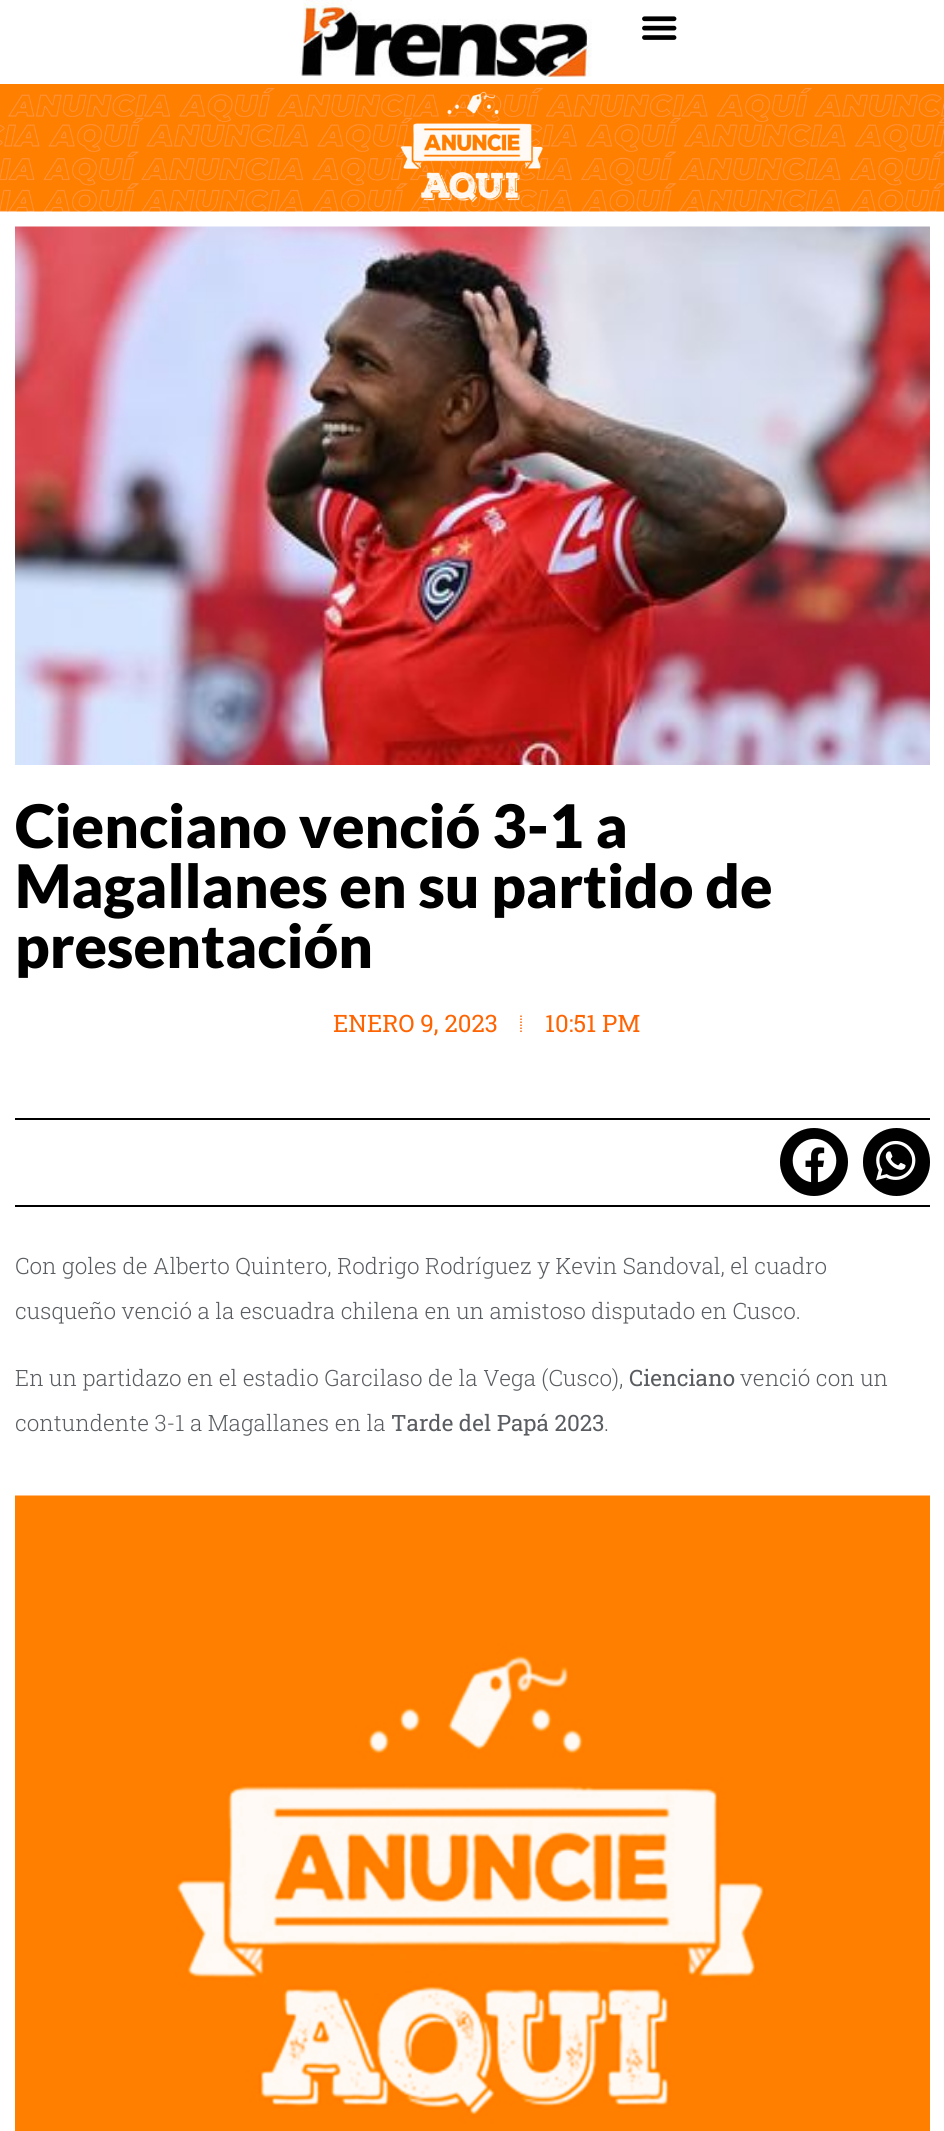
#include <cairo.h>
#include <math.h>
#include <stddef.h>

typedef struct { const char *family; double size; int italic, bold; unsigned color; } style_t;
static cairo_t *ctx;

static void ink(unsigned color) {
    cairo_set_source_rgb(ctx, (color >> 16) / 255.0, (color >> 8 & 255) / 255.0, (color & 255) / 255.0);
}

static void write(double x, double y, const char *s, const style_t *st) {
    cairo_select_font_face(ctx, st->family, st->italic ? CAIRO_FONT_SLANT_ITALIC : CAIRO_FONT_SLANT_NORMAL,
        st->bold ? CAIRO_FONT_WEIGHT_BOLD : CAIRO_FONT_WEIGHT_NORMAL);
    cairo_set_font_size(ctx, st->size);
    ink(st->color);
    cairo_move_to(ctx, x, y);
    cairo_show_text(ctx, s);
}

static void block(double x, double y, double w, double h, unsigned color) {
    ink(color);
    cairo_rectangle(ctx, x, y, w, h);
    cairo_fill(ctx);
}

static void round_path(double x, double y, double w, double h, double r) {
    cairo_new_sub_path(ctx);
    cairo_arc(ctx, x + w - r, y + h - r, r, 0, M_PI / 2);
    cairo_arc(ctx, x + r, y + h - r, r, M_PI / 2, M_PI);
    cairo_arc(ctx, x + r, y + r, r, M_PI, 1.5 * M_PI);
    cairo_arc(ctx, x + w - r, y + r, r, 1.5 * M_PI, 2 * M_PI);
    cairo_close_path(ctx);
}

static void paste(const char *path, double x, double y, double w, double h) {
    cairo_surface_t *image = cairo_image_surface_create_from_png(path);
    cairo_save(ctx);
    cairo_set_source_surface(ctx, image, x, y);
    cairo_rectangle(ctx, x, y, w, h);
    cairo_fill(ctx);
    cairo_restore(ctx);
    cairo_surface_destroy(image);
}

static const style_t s1 = {"Lato Black", 60, 0, 0, 0x000000};
static const style_t s2 = {"Roboto Slab", 24, 0, 0, 0xff6402};
static const style_t s3 = {"Roboto Slab Light", 22.5, 0, 0, 0x595c60};
static const style_t s4 = {"Roboto Slab", 22.5, 0, 0, 0x595c60};

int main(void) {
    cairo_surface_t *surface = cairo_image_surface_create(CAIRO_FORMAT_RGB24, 944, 2131);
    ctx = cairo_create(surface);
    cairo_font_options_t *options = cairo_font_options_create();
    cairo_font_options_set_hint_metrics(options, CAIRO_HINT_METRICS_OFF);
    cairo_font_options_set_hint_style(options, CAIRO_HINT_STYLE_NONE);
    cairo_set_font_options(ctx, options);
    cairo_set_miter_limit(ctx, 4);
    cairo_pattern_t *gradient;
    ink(0xffffff);
    cairo_paint(ctx);
    paste("pic1.png", 299, 0, 293, 77);
    paste("pic2.png", 642, 16, 35, 24);
    paste("pic3.png", 0, 84, 944, 128);
    paste("pic4.png", 15, 226, 915, 539);
    write(15, 848, "Cienciano venció 3-1 a", &s1);
    write(15, 908, "Magallanes en su partido de", &s1);
    write(15, 968, "presentación", &s1);
    write(333, 1032, "ENERO 9, 2023", &s2);
    cairo_new_path(ctx);
    cairo_move_to(ctx, 521, 1015.5);
    cairo_line_to(ctx, 521, 1032);
    cairo_set_line_width(ctx, 1.5);
    cairo_set_dash(ctx, (double[]){1.5, 1.5}, 2, 0);
    cairo_stroke(ctx);
    write(545, 1032, "10:51 PM", &s2);
    block(15, 1118, 915, 2, 0x000000);
    block(15, 1205, 915, 2, 0x000000);
    cairo_new_path(ctx);
    cairo_arc(ctx, 814, 1162, 34, 0, 2 * M_PI);
    cairo_fill(ctx);
    gradient = cairo_pattern_create_linear(780, 1162, 848, 1162);
    cairo_pattern_add_color_stop_rgba(gradient, 0, 0, 0, 0, 0.12);
    cairo_pattern_add_color_stop_rgba(gradient, 1, 0, 0, 0, 0);
    cairo_set_source(ctx, gradient);
    cairo_pattern_destroy(gradient);
    cairo_arc(ctx, 814, 1162, 34, 0, 2 * M_PI);
    cairo_fill(ctx);
    paste("pic5.png", 792, 1138, 45, 45);
    ink(0x000000);
    round_path(863, 1128, 67, 68, 33.5);
    cairo_fill(ctx);
    gradient = cairo_pattern_create_linear(863, 1162, 930, 1162);
    cairo_pattern_add_color_stop_rgba(gradient, 0, 0, 0, 0, 0.12);
    cairo_pattern_add_color_stop_rgba(gradient, 1, 0, 0, 0, 0);
    cairo_set_source(ctx, gradient);
    cairo_pattern_destroy(gradient);
    round_path(863, 1128, 67, 68, 33.5);
    cairo_fill(ctx);
    paste("pic6.png", 876, 1140, 40, 41);
    write(15, 1274, "Con goles de Alberto Quintero, Rodrigo Rodríguez y Kevin Sandoval, el cuadro", &s3);
    write(15, 1319, "cusqueño venció a la escuadra chilena en un amistoso disputado en Cusco.", &s3);
    write(15, 1386, "En un partidazo en el estadio Garcilaso de la Vega (Cusco),", &s3);
    write(629, 1386, "Cienciano", &s4);
    write(740, 1386, "venció con un", &s3);
    write(15, 1431, "contundente 3-1 a Magallanes en la", &s3);
    write(391, 1431, "Tarde del Papá 2023", &s4);
    write(604, 1431, ".", &s3);
    paste("pic7.png", 15, 1495, 915, 636);
    cairo_surface_write_to_png(surface, "screenshot.png");
    cairo_font_options_destroy(options);
    cairo_destroy(ctx);
    cairo_surface_destroy(surface);
    return 0;
}
